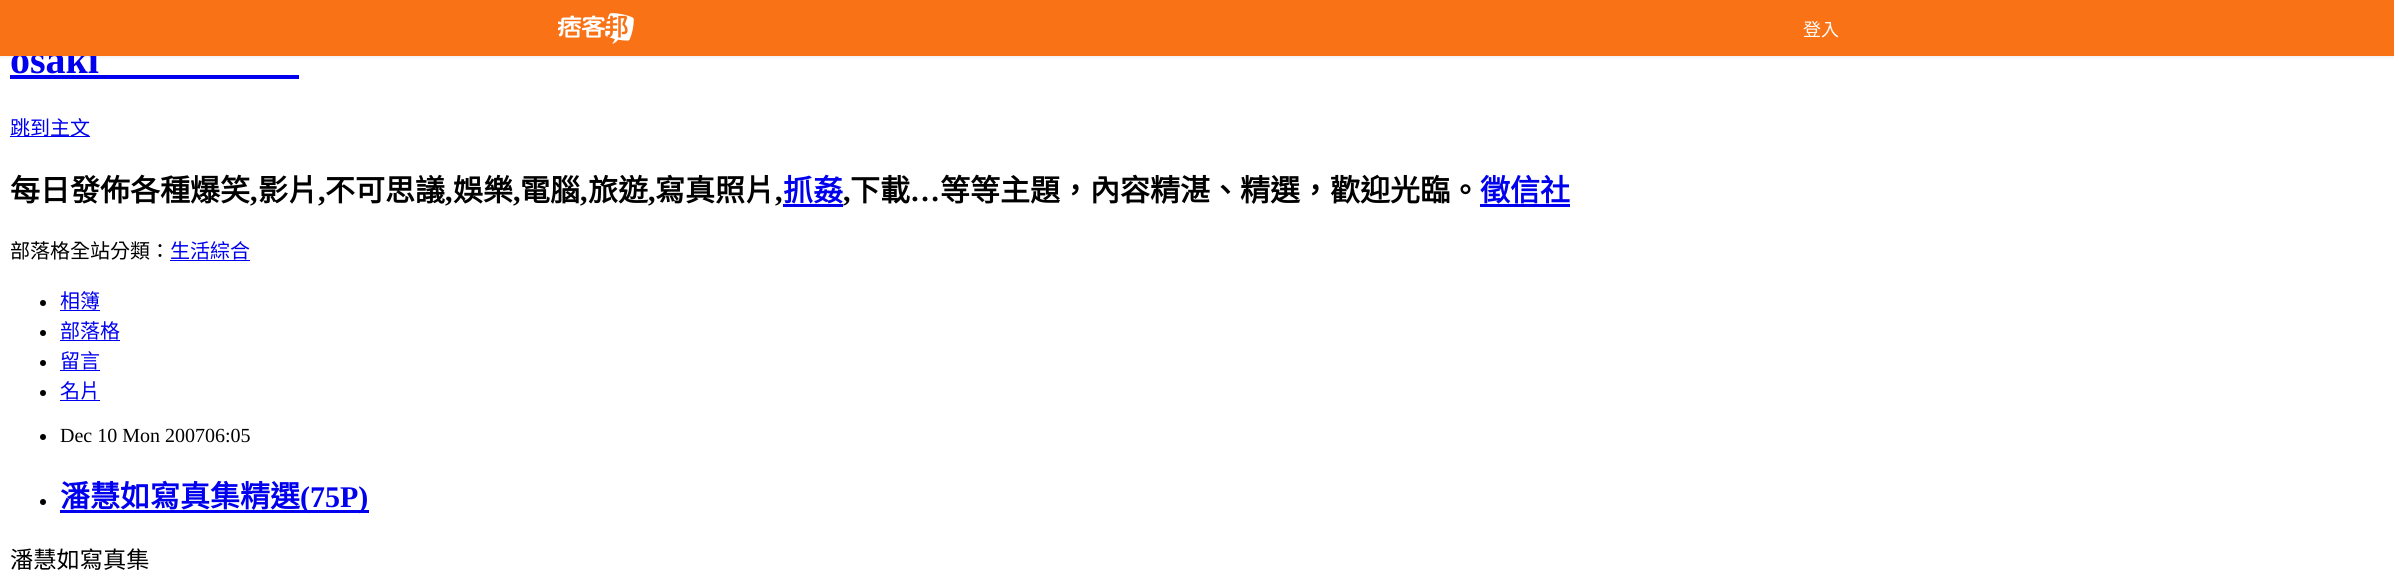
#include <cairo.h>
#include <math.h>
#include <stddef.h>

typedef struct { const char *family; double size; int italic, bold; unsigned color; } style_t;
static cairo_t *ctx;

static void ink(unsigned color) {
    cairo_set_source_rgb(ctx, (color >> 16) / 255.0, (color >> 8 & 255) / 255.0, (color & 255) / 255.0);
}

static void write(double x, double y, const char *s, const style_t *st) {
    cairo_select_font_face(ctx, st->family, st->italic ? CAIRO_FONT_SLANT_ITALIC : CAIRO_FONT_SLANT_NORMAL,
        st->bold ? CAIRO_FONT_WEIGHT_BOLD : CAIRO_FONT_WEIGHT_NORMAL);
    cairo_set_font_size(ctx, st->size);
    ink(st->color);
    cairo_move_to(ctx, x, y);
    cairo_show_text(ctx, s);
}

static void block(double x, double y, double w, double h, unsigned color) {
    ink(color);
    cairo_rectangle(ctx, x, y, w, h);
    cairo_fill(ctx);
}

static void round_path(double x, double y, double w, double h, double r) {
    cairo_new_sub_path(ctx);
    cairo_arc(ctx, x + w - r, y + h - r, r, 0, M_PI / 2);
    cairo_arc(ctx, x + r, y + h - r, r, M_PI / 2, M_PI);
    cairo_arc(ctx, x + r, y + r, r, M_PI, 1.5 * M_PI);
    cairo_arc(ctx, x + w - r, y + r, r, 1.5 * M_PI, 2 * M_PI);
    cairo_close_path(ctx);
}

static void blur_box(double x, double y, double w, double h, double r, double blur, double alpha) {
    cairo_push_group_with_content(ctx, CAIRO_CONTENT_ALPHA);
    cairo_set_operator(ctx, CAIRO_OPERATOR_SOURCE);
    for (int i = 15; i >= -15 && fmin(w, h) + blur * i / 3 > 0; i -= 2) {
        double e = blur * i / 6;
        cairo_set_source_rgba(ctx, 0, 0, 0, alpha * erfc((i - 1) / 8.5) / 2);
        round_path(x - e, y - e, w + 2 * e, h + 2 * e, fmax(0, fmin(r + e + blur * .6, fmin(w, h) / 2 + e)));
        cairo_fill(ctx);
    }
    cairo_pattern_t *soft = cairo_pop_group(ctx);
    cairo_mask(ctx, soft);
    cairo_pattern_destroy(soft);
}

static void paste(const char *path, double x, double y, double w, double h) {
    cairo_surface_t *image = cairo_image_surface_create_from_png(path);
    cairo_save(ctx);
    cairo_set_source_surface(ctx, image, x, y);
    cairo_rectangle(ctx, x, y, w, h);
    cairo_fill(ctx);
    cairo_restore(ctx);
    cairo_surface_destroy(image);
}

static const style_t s1 = {"Liberation Serif", 40, 0, 1, 0x0000ee};
static const style_t s2 = {"Noto Sans CJK TC", 18, 0, 0, 0xffffff};
static const style_t s3 = {"Noto Sans CJK TC", 20, 0, 0, 0x0000ee};
static const style_t s4 = {"Noto Sans CJK TC", 30, 0, 1, 0x000000};
static const style_t s5 = {"Liberation Serif", 30, 0, 1, 0x000000};
static const style_t s6 = {"Noto Sans CJK TC", 30, 0, 1, 0x0000ee};
static const style_t s7 = {"Noto Sans CJK TC", 20, 0, 0, 0x000000};
static const style_t s8 = {"Liberation Serif", 20, 0, 0, 0x000000};
static const style_t s9 = {"Liberation Serif", 30, 0, 1, 0x0000ee};
static const style_t s10 = {"Noto Sans CJK TC", 23.25, 0, 0, 0x000000};

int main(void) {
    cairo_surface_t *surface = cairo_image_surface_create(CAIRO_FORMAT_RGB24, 2394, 588);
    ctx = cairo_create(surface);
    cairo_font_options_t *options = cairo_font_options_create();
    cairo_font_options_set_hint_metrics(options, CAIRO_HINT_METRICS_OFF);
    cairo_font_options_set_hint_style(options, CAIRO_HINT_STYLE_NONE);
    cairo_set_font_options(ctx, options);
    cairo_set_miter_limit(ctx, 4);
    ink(0xffffff);
    cairo_paint(ctx);
    ink(0x000000);
    blur_box(0, 1, 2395, 57, 0, 1, 0.05);
    write(10, 73, "osaki", &s1);
    block(0, 0, 2394, 56, 0xf97316);
    paste("pic1.png", 558, 13, 76, 31);
    write(1803, 36, "登入", &s2);
    block(10, 75, 289, 4, 0x0000ee);
    block(10, 136, 80, 1, 0x0000ee);
    write(10, 135, "跳到主文", &s3);
    write(10, 201, "每日發佈各種爆笑", &s4);
    write(250, 201, ",", &s5);
    write(258, 201, "影片", &s4);
    write(318, 201, ",", &s5);
    write(325, 201, "不可思議", &s4);
    write(445, 201, ",", &s5);
    write(453, 201, "娛樂", &s4);
    write(513, 201, ",", &s5);
    write(520, 201, "電腦", &s4);
    write(580, 201, ",", &s5);
    write(588, 201, "旅遊", &s4);
    write(648, 201, ",", &s5);
    write(655, 201, "寫真照片", &s4);
    write(775, 201, ",", &s5);
    write(783, 201, "抓姦", &s6);
    block(783, 204, 60, 3, 0x0000ee);
    write(843, 201, ",", &s5);
    write(850, 201, "下載", &s4);
    write(910, 201, "…", &s5);
    write(940, 201, "等等主題，內容精湛、精選，歡迎光臨。", &s4);
    write(1480, 201, "徵信社", &s6);
    block(1480, 204, 90, 3, 0x0000ee);
    write(10, 258, "部落格全站分類：", &s7);
    write(170, 258, "生活綜合", &s3);
    block(170, 260, 80, 1, 0x0000ee);
    ink(0x000000);
    cairo_new_path(ctx);
    cairo_arc(ctx, 43, 303, 3, 0, 2 * M_PI);
    cairo_fill(ctx);
    write(60, 308, "相簿", &s3);
    block(60, 310, 40, 1, 0x0000ee);
    ink(0x000000);
    cairo_new_path(ctx);
    cairo_arc(ctx, 43, 333, 3, 0, 2 * M_PI);
    cairo_fill(ctx);
    write(60, 338, "部落格", &s3);
    block(60, 340, 60, 1, 0x0000ee);
    ink(0x000000);
    cairo_new_path(ctx);
    cairo_arc(ctx, 43, 363, 3, 0, 2 * M_PI);
    cairo_fill(ctx);
    write(60, 368, "留言", &s3);
    block(60, 370, 40, 1, 0x0000ee);
    ink(0x000000);
    cairo_new_path(ctx);
    cairo_arc(ctx, 43, 393, 3, 0, 2 * M_PI);
    cairo_fill(ctx);
    write(60, 398, "名片", &s3);
    block(60, 400, 40, 1, 0x0000ee);
    ink(0x000000);
    cairo_new_path(ctx);
    cairo_arc(ctx, 43, 437, 3, 0, 2 * M_PI);
    cairo_fill(ctx);
    write(60, 442, "Dec 10 Mon 200706:05", &s8);
    cairo_new_path(ctx);
    cairo_arc(ctx, 43, 502, 3, 0, 2 * M_PI);
    cairo_fill(ctx);
    write(60, 507, "潘慧如寫真集精選", &s6);
    block(60, 510, 309, 3, 0x0000ee);
    write(300, 507, "(75P)", &s9);
    write(10, 568, "潘慧如寫真集", &s10);
    cairo_surface_write_to_png(surface, "screenshot.png");
    cairo_font_options_destroy(options);
    cairo_destroy(ctx);
    cairo_surface_destroy(surface);
    return 0;
}
